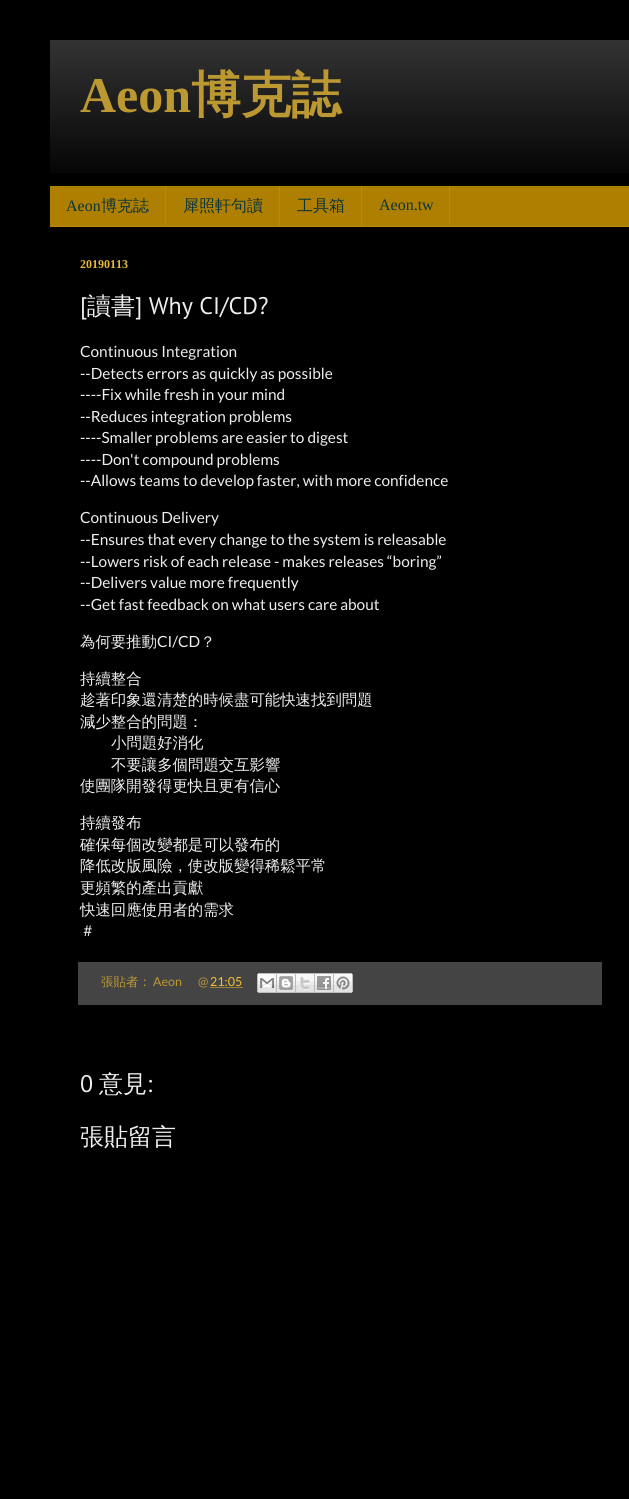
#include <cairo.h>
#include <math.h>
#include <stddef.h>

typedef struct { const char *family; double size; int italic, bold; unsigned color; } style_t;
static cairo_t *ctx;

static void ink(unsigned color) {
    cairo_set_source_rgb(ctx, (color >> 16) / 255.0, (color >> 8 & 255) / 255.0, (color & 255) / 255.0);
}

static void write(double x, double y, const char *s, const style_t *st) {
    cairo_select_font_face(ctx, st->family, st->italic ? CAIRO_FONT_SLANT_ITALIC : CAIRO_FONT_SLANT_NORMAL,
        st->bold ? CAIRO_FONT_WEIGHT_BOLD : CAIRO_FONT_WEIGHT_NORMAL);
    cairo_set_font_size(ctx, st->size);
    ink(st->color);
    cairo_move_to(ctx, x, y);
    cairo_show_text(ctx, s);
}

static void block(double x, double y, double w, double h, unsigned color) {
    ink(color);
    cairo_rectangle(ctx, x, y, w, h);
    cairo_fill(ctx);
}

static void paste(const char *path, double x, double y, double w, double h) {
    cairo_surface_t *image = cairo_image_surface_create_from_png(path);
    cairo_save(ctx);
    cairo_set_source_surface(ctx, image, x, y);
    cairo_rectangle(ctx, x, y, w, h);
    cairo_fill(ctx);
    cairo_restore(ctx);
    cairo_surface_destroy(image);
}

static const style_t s1 = {"Liberation Serif", 50, 0, 1, 0xbb9832};
static const style_t s2 = {"WenQuanYi Zen Hei", 50, 0, 1, 0xbb9832};
static const style_t s3 = {"Liberation Serif", 16, 0, 0, 0x0c343d};
static const style_t s4 = {"WenQuanYi Zen Hei Medium", 16, 0, 0, 0x0c343d};
static const style_t s5 = {"Liberation Serif", 12, 0, 1, 0xe9bc38};
static const style_t s6 = {"PT Sans", 24, 0, 0, 0xeeeeee};
static const style_t s7 = {"WenQuanYi Zen Hei Medium", 24, 0, 0, 0xeeeeee};
static const style_t s8 = {"Lato", 15.4, 0, 0, 0xeeeeee};
static const style_t s9 = {"WenQuanYi Zen Hei Medium", 15.4, 0, 0, 0xeeeeee};
static const style_t s10 = {"WenQuanYi Zen Hei Medium", 12.5, 0, 0, 0xbb9832};
static const style_t s11 = {"Lato", 12.5, 0, 0, 0xbb9832};
static const style_t s12 = {"Lato", 12.5, 0, 0, 0xf1c232};

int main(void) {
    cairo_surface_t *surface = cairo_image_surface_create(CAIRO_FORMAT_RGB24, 629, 1499);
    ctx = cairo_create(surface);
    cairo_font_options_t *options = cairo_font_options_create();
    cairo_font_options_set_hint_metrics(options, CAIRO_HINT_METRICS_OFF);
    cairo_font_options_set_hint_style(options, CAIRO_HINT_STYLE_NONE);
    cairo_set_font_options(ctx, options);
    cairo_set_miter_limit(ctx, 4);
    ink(0x000000);
    cairo_paint(ctx);
    paste("pic1.png", 50, 40, 579, 133);
    write(80, 112, "Aeon", &s1);
    write(191, 112, "博克誌", &s2);
    block(50, 186, 579, 40, 0xae7f01);
    block(50, 226, 579, 1, 0xbb8b00);
    block(165, 186, 1, 40, 0xbb8b00);
    write(66, 211, "Aeon", &s3);
    write(101, 211, "博克誌", &s4);
    block(279, 186, 1, 40, 0xbb8b00);
    write(183, 211, "犀照軒句讀", &s4);
    block(361, 186, 1, 40, 0xbb8b00);
    write(297, 211, "工具箱", &s4);
    block(449, 186, 1, 37, 0xbb8b00);
    write(379, 210, "Aeon.tw", &s3);
    write(80, 268, "20190113", &s5);
    write(80, 314, "[", &s6);
    write(87, 314, "讀書", &s7);
    write(135, 314, "] Why CI/CD?", &s6);
    write(80, 357, "Continuous Integration", &s8);
    write(80, 379, "--Detects errors as quickly as possible", &s8);
    write(80, 400, "----Fix while fresh in your mind", &s8);
    write(80, 422, "--Reduces integration problems", &s8);
    write(80, 443, "----Smaller problems are easier to digest", &s8);
    write(80, 465, "----Don't compound problems", &s8);
    write(80, 486, "--Allows teams to develop faster, with more confidence", &s8);
    write(80, 523, "Continuous Delivery", &s8);
    write(80, 545, "--Ensures that every change to the system is releasable", &s8);
    write(80, 567, "--Lowers risk of each release - makes releases “boring”", &s8);
    write(80, 588, "--Delivers value more frequently", &s8);
    write(80, 610, "--Get fast feedback on what users care about", &s8);
    write(80, 647, "為何要推動", &s9);
    write(157, 647, "CI/CD", &s8);
    write(200, 647, "？", &s9);
    write(80, 684, "持續整合", &s9);
    write(80, 705, "趁著印象還清楚的時候盡可能快速找到問題", &s9);
    write(80, 727, "減少整合的問題：", &s9);
    write(111, 748, "小問題好消化", &s9);
    write(111, 770, "不要讓多個問題交互影響", &s9);
    write(80, 791, "使團隊開發得更快且更有信心", &s9);
    write(80, 828, "持續發布", &s9);
    write(80, 850, "確保每個改變都是可以發布的", &s9);
    write(80, 871, "降低改版風險，使改版變得稀鬆平常", &s9);
    write(80, 893, "更頻繁的產出貢獻", &s9);
    write(80, 915, "快速回應使用者的需求", &s9);
    write(80, 936, "＃", &s9);
    block(78, 962, 524, 43, 0x444444);
    write(101, 986, "張貼者：", &s10);
    write(153, 986, "Aeon", &s11);
    write(198, 986, "@", &s11);
    cairo_new_path(ctx);
    cairo_move_to(ctx, 210.5, 987.5);
    cairo_line_to(ctx, 243, 987.5);
    ink(0xf1c232);
    cairo_set_line_width(ctx, 1);
    cairo_set_dash(ctx, (double[]){1, 1}, 2, 0);
    cairo_stroke(ctx);
    write(210, 986, "21:05", &s12);
    paste("pic2.png", 257, 973, 20, 20);
    paste("pic3.png", 277, 973, 19, 20);
    paste("pic4.png", 296, 973, 19, 20);
    paste("pic5.png", 315, 973, 19, 20);
    paste("pic6.png", 334, 973, 19, 20);
    write(80, 1092, "0", &s6);
    write(99, 1092, "意見", &s7);
    write(147, 1092, ":", &s6);
    write(80, 1145, "張貼留言", &s7);
    cairo_surface_write_to_png(surface, "screenshot.png");
    cairo_font_options_destroy(options);
    cairo_destroy(ctx);
    cairo_surface_destroy(surface);
    return 0;
}
